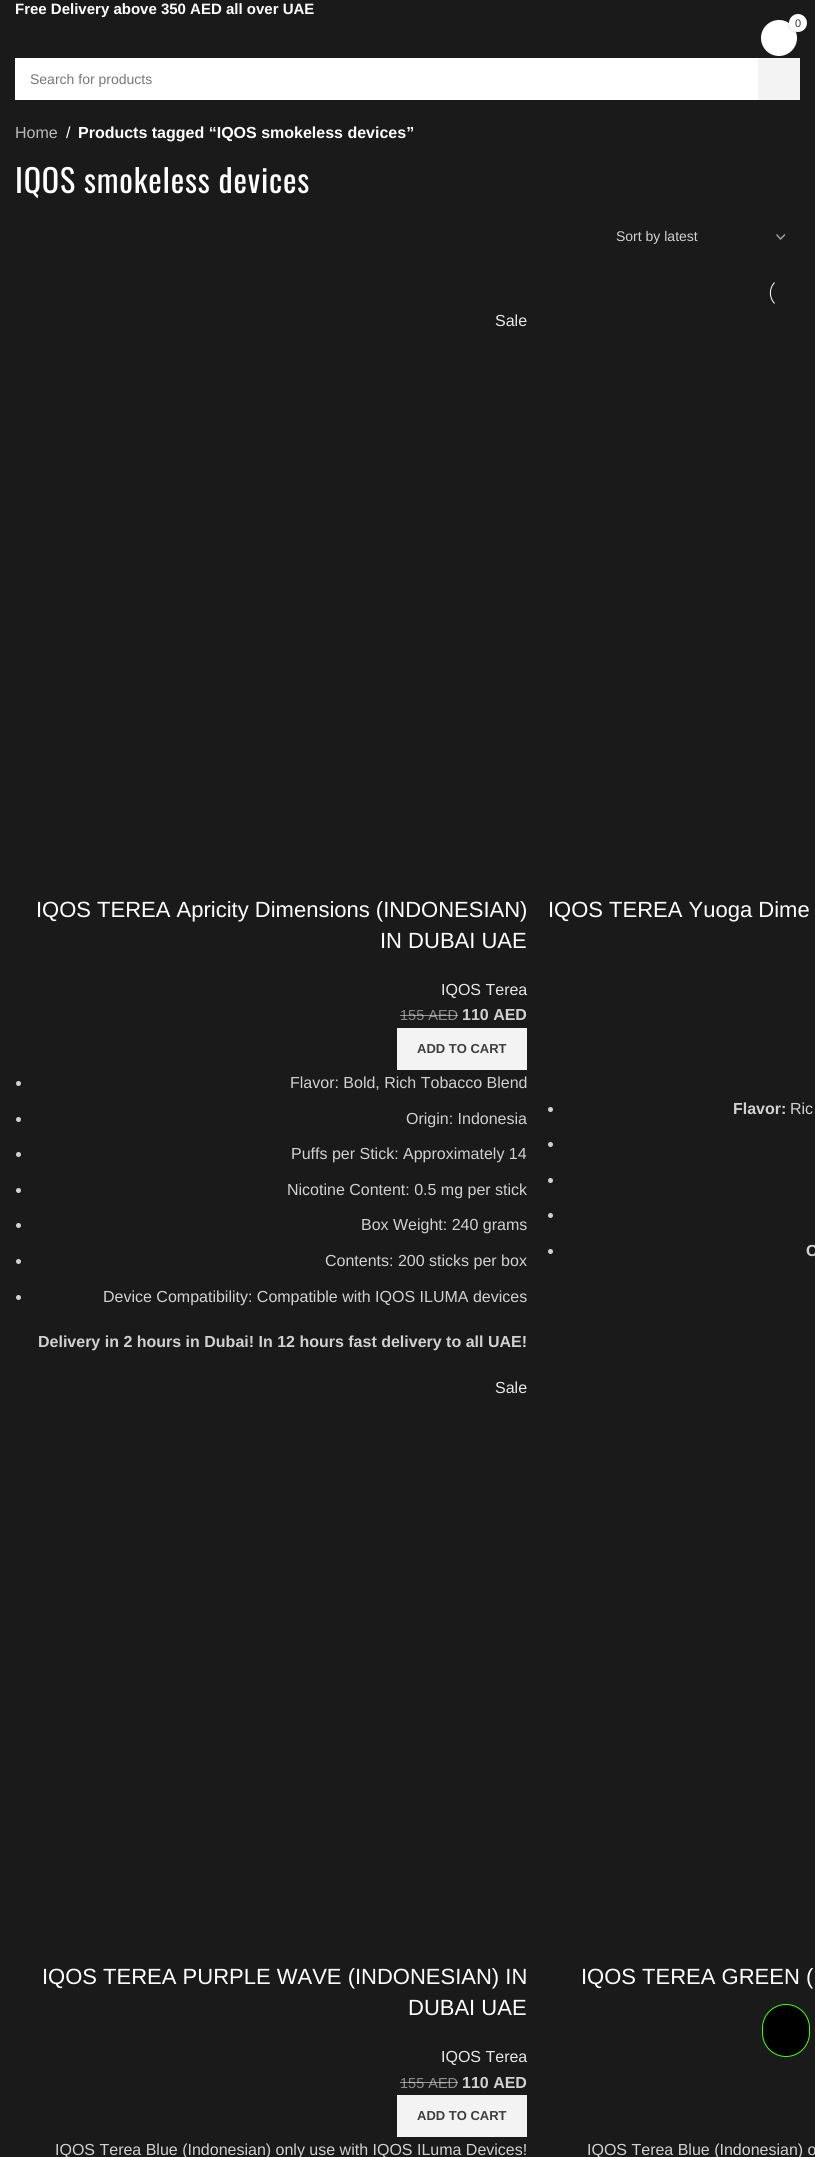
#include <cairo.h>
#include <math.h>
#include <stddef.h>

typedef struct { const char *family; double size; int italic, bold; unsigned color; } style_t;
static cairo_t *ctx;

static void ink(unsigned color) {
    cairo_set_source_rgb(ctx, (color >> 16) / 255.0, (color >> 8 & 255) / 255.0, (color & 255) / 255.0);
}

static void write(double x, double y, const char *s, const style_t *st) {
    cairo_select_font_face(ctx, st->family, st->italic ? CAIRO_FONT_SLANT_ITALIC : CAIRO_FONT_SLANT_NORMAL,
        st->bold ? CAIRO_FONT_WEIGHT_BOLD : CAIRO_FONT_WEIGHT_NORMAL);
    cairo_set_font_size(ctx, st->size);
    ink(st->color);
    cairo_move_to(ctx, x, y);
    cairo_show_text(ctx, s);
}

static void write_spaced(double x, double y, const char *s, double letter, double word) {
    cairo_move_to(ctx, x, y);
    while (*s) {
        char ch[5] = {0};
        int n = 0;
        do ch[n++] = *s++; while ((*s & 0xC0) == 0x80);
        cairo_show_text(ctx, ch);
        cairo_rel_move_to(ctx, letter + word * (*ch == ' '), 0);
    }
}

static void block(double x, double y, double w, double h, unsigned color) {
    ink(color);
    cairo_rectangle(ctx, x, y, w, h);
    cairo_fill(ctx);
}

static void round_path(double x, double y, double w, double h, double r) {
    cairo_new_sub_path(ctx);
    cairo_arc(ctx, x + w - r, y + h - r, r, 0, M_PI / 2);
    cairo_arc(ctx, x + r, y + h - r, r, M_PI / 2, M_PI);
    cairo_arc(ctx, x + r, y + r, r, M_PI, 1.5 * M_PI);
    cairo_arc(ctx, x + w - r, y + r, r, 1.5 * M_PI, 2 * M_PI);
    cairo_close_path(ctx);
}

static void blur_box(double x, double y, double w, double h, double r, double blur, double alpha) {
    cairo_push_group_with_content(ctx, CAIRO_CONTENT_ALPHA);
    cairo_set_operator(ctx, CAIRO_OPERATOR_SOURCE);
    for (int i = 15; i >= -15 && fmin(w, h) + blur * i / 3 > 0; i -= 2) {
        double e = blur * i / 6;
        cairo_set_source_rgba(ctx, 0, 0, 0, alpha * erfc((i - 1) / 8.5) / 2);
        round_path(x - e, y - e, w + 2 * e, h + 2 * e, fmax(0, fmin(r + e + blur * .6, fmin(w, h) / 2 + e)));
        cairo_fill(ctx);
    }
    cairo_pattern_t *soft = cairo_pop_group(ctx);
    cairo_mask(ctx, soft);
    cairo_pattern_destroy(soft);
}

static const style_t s1 = {"Liberation Sans", 15, 0, 1, 0xffffff};
static const style_t s2 = {"Liberation Sans", 11, 0, 0, 0x333333};
static const style_t s3 = {"Liberation Sans", 14, 0, 0, 0x767676};
static const style_t s4 = {"Liberation Sans", 16, 0, 0, 0xbababa};
static const style_t s5 = {"Liberation Sans", 16, 0, 0, 0xffffff};
static const style_t s6 = {"Liberation Sans", 16, 0, 1, 0xffffff};
static const style_t s7 = {"Liberation Sans", 14, 0, 0, 0xd1d1d1};
static const style_t s8 = {"Liberation Sans", 16, 0, 0, 0xe8e8e8};
static const style_t s9 = {"Liberation Sans", 22, 0, 0, 0xffffff};
static const style_t s10 = {"Liberation Sans", 14.5, 0, 0, 0x8d8d8d};
static const style_t s11 = {"Liberation Sans", 16, 0, 1, 0xd1d1d1};
static const style_t s12 = {"Liberation Sans", 13, 0, 1, 0x3e3e3e};
static const style_t s13 = {"Liberation Sans", 16, 0, 0, 0xd1d1d1};

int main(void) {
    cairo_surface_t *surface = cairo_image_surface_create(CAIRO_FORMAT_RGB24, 815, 2157);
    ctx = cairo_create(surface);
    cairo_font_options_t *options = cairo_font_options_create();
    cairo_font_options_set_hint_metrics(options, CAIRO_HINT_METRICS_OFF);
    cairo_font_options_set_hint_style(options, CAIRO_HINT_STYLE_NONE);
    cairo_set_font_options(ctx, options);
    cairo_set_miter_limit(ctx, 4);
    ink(0x1a1a1a);
    cairo_paint(ctx);
    write(15, 14, "Free Delivery above 350 AED all over UAE", &s1);
    cairo_new_path(ctx);
    cairo_arc(ctx, 779, 38, 18, 0, 2 * M_PI);
    cairo_fill(ctx);
    ink(0x000000);
    blur_box(789, 14, 18, 18, 9, 2, 0.17);
    ink(0xffffff);
    cairo_arc(ctx, 798, 23, 9, 0, 2 * M_PI);
    cairo_fill(ctx);
    write(795, 27, "0", &s2);
    block(15, 58, 743, 42, 0xffffff);
    write(30, 84, "Search for products", &s3);
    block(758, 58, 42, 42, 0xf3f3f3);
    write(15, 138, "Home", &s4);
    write(66, 138, "/", &s5);
    write(78, 138, "Products tagged “IQOS smokeless devices”", &s6);
    cairo_select_font_face(ctx, "Oswald", CAIRO_FONT_SLANT_NORMAL, CAIRO_FONT_WEIGHT_NORMAL);
    cairo_set_font_size(ctx, 32);
    write_spaced(15, 193, "IQOS smokeless devices", 0.8, 0);
    cairo_new_path(ctx);
    cairo_move_to(ctx, 776.5, 234.5);
    cairo_line_to(ctx, 780.5, 239);
    cairo_line_to(ctx, 785, 234.5);
    ink(0xa3a3a3);
    cairo_set_line_width(ctx, 1.4);
    cairo_stroke(ctx);
    write(616, 241, "Sort by latest", &s7);
    cairo_new_path(ctx);
    cairo_move_to(ctx, 774.5, 303.5);
    cairo_curve_to(ctx, 769, 297.5, 769, 288.5, 774.5, 282.5);
    ink(0xffffff);
    cairo_set_line_width(ctx, 1);
    cairo_stroke(ctx);
    write(495, 326, "Sale", &s8);
    write(36, 917, "IQOS TEREA Apricity Dimensions (INDONESIAN)", &s9);
    write(380, 948, "IN DUBAI UAE", &s9);
    write(441, 995, "IQOS Terea", &s8);
    write(400, 1020, "155 AED", &s10);
    cairo_set_source_rgba(ctx, 1, 1, 1, 0.5);
    cairo_rectangle(ctx, 400, 1015, 28, 1);
    cairo_fill(ctx);
    cairo_rectangle(ctx, 428, 1015, 30, 1);
    cairo_fill(ctx);
    write(462, 1020, "110 AED", &s11);
    block(397, 1028, 130, 42, 0xf3f3f3);
    write(417, 1053, "ADD TO CART", &s12);
    ink(0xd1d1d1);
    cairo_new_path(ctx);
    cairo_arc(ctx, 18.5, 1083.5, 2.5, 0, 2 * M_PI);
    cairo_fill(ctx);
    write(290, 1088, "Flavor: Bold, Rich Tobacco Blend", &s13);
    cairo_new_path(ctx);
    cairo_arc(ctx, 18.5, 1119.5, 2.5, 0, 2 * M_PI);
    cairo_fill(ctx);
    write(406, 1124, "Origin: Indonesia", &s13);
    cairo_new_path(ctx);
    cairo_arc(ctx, 18.5, 1154.5, 2.5, 0, 2 * M_PI);
    cairo_fill(ctx);
    write(291, 1159, "Puffs per Stick: Approximately 14", &s13);
    cairo_new_path(ctx);
    cairo_arc(ctx, 18.5, 1190.5, 2.5, 0, 2 * M_PI);
    cairo_fill(ctx);
    write(287, 1195, "Nicotine Content: 0.5 mg per stick", &s13);
    cairo_new_path(ctx);
    cairo_arc(ctx, 18.5, 1225.5, 2.5, 0, 2 * M_PI);
    cairo_fill(ctx);
    write(361, 1230, "Box Weight: 240 grams", &s13);
    cairo_new_path(ctx);
    cairo_arc(ctx, 18.5, 1261.5, 2.5, 0, 2 * M_PI);
    cairo_fill(ctx);
    write(325, 1266, "Contents: 200 sticks per box", &s13);
    cairo_new_path(ctx);
    cairo_arc(ctx, 18.5, 1297.5, 2.5, 0, 2 * M_PI);
    cairo_fill(ctx);
    write(103, 1302, "Device Compatibility: Compatible with IQOS ILUMA devices", &s13);
    write(38, 1347, "Delivery in 2 hours in Dubai! In 12 hours fast delivery to all UAE!", &s11);
    write(548, 917, "IQOS TEREA Yuoga Dime", &s9);
    ink(0xd1d1d1);
    cairo_new_path(ctx);
    cairo_arc(ctx, 550.5, 1109.5, 2.5, 0, 2 * M_PI);
    cairo_fill(ctx);
    write(733, 1114, "Flavor:", &s11);
    write(790, 1114, "Ric", &s13);
    cairo_new_path(ctx);
    cairo_arc(ctx, 550.5, 1144.5, 2.5, 0, 2 * M_PI);
    cairo_fill(ctx);
    cairo_arc(ctx, 550.5, 1180.5, 2.5, 0, 2 * M_PI);
    cairo_fill(ctx);
    cairo_arc(ctx, 550.5, 1215.5, 2.5, 0, 2 * M_PI);
    cairo_fill(ctx);
    cairo_arc(ctx, 550.5, 1251.5, 2.5, 0, 2 * M_PI);
    cairo_fill(ctx);
    write(806, 1256, "C", &s11);
    write(495, 1393, "Sale", &s8);
    write(42, 1984, "IQOS TEREA PURPLE WAVE (INDONESIAN) IN", &s9);
    write(408, 2015, "DUBAI UAE", &s9);
    write(441, 2062, "IQOS Terea", &s8);
    write(400, 2088, "155 AED", &s10);
    cairo_set_source_rgba(ctx, 1, 1, 1, 0.5);
    cairo_rectangle(ctx, 400, 2082, 28, 1);
    cairo_fill(ctx);
    cairo_rectangle(ctx, 428, 2082, 30, 1);
    cairo_fill(ctx);
    write(462, 2088, "110 AED", &s11);
    block(397, 2095, 130, 42, 0xf3f3f3);
    write(417, 2120, "ADD TO CART", &s12);
    write(55, 2155, "IQOS Terea Blue (Indonesian) only use with IQOS ILuma Devices!", &s13);
    write(581, 1984, "IQOS TEREA GREEN (", &s9);
    write(587, 2155, "IQOS Terea Blue (Indonesian) o", &s13);
    ink(0x000000);
    round_path(762.5, 2004.5, 47, 52, 23.5);
    cairo_fill_preserve(ctx);
    ink(0x44ff00);
    cairo_stroke(ctx);
    cairo_surface_write_to_png(surface, "screenshot.png");
    cairo_font_options_destroy(options);
    cairo_destroy(ctx);
    cairo_surface_destroy(surface);
    return 0;
}
